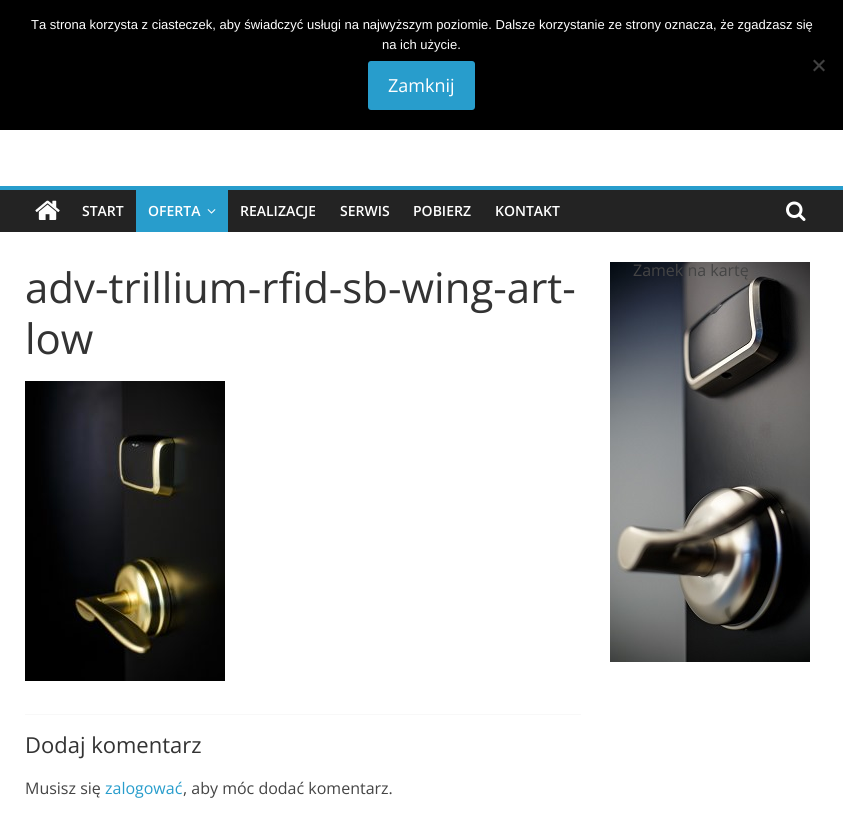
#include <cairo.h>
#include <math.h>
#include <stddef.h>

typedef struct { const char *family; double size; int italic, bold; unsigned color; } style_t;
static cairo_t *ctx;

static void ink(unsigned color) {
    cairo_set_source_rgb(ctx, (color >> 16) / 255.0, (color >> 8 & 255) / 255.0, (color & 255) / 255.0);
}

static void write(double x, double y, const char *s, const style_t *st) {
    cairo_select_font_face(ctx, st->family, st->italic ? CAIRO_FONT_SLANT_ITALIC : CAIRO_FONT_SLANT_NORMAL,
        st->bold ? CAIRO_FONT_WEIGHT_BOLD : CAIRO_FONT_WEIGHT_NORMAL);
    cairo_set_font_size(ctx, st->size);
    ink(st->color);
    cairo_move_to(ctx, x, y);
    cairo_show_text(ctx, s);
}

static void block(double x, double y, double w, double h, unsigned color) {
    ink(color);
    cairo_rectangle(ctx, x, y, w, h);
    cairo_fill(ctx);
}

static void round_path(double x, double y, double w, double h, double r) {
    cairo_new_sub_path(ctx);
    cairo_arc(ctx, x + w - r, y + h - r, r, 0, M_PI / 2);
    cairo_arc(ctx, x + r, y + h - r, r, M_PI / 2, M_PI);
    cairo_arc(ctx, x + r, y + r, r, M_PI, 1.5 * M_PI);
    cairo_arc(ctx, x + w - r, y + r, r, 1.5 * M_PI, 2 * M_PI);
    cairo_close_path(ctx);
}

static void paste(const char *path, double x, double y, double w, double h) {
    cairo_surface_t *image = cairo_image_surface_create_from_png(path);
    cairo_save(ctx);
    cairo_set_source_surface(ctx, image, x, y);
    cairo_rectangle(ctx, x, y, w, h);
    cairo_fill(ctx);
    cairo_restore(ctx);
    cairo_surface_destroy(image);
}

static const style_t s1 = {"Liberation Sans", 13, 0, 0, 0xffffff};
static const style_t s2 = {"Open Sans", 18, 0, 0, 0xffffff};
static const style_t s3 = {"Open Sans SemiBold", 14, 0, 0, 0xffffff};
static const style_t s4 = {"Open Sans", 42, 0, 0, 0x333333};
static const style_t s5 = {"Open Sans", 22, 0, 0, 0x333333};
static const style_t s6 = {"Open Sans", 16, 0, 0, 0x444444};
static const style_t s7 = {"Open Sans", 16, 0, 0, 0x289dcc};

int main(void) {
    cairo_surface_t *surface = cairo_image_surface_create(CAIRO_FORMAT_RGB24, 843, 828);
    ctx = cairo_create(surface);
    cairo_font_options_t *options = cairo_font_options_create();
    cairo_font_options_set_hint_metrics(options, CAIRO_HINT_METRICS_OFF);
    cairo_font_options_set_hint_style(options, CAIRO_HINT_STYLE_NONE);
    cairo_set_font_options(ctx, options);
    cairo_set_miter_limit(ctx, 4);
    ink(0xffffff);
    cairo_paint(ctx);
    block(0, 0, 843, 130, 0x000000);
    write(31, 29, "Ta strona korzysta z ciasteczek, aby świadczyć usługi na najwyższym poziomie. Dalsze korzystanie ze strony oznacza, że zgadzasz się", &s1);
    write(382, 49, "na ich użycie.", &s1);
    ink(0x404040);
    cairo_new_path(ctx);
    cairo_move_to(ctx, 823.5, 59.5);
    cairo_line_to(ctx, 825, 61);
    cairo_line_to(ctx, 814.5, 71.5);
    cairo_line_to(ctx, 813, 70);
    cairo_close_path(ctx);
    cairo_fill(ctx);
    cairo_new_path(ctx);
    cairo_move_to(ctx, 813, 61);
    cairo_line_to(ctx, 814.5, 59.5);
    cairo_line_to(ctx, 825, 70);
    cairo_line_to(ctx, 823.5, 71.5);
    cairo_close_path(ctx);
    cairo_fill(ctx);
    ink(0x289dcc);
    round_path(368, 61, 107, 49, 3);
    cairo_fill(ctx);
    write(388, 92, "Zamknij", &s2);
    block(0, 190, 843, 42, 0x232323);
    block(0, 186, 843, 4, 0x289dcc);
    paste("pic1.png", 35, 200, 25, 20);
    write(82, 216, "START", &s3);
    block(136, 190, 92, 42, 0x289dcc);
    write(148, 216, "OFERTA", &s3);
    paste("pic2.png", 207, 209, 9, 5);
    write(240, 216, "REALIZACJE", &s3);
    write(340, 216, "SERWIS", &s3);
    write(413, 216, "POBIERZ", &s3);
    write(495, 216, "KONTAKT", &s3);
    paste("pic3.png", 786, 201, 20, 20);
    write(25, 303, "adv-trillium-rfid-sb-wing-art-", &s4);
    write(25, 354, "low", &s4);
    paste("pic4.png", 25, 381, 200, 300);
    block(25, 714, 556, 1, 0xf8f8f8);
    write(25, 753, "Dodaj komentarz", &s5);
    write(25, 794, "Musisz się", &s6);
    write(105, 794, "zalogować", &s7);
    write(183, 794, ", aby móc dodać komentarz.", &s6);
    paste("pic5.png", 610, 262, 200, 400);
    write(633, 276, "Zamek na kartę", &s6);
    cairo_surface_write_to_png(surface, "screenshot.png");
    cairo_font_options_destroy(options);
    cairo_destroy(ctx);
    cairo_surface_destroy(surface);
    return 0;
}
